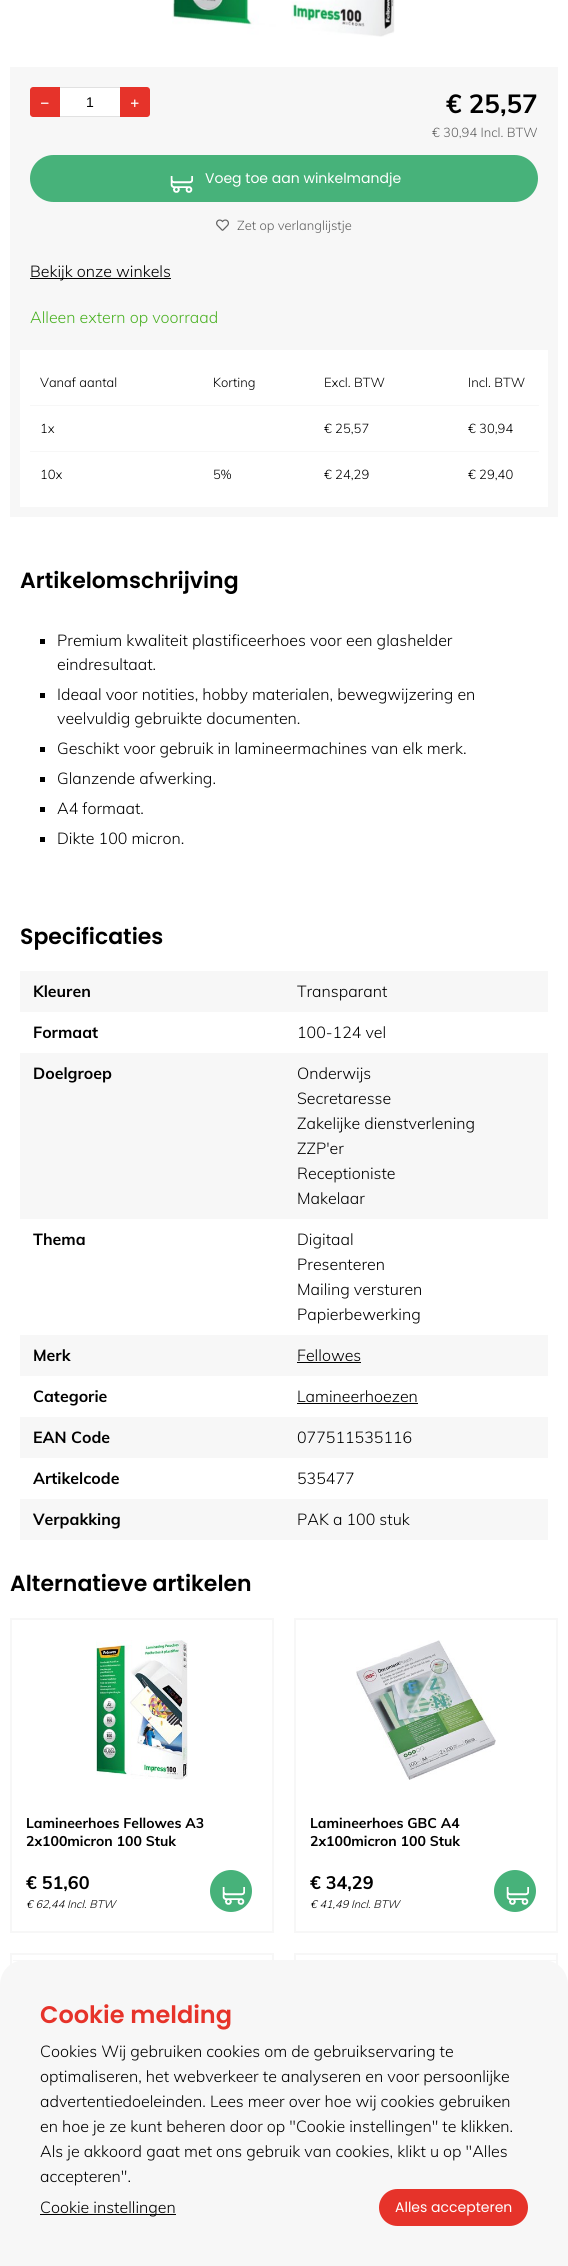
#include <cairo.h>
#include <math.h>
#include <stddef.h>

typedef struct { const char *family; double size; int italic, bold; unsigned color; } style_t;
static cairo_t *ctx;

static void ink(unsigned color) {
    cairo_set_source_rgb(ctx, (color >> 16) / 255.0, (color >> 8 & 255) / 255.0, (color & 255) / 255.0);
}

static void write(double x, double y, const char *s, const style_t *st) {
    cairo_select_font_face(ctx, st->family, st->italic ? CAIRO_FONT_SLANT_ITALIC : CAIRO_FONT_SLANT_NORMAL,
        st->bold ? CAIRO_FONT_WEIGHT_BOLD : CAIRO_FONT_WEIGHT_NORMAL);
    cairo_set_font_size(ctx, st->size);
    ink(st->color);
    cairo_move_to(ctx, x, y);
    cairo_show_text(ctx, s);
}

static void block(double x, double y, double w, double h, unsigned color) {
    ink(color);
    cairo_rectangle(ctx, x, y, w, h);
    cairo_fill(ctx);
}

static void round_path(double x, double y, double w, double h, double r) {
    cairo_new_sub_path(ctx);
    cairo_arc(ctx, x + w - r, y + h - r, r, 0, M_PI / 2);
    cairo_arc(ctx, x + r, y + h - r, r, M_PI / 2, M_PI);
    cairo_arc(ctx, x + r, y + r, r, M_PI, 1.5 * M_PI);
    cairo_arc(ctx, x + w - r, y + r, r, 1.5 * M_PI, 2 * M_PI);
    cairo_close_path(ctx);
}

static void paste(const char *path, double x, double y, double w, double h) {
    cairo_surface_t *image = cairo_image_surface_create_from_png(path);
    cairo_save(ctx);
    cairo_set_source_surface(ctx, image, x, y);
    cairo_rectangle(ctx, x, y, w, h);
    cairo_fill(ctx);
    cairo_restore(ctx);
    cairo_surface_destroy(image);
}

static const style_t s1 = {"Liberation Sans", 14, 0, 0, 0x000000};
static const style_t s2 = {"Muli", 26, 0, 1, 0x000000};
static const style_t s3 = {"Muli Light", 13, 0, 0, 0x626262};
static const style_t s4 = {"Poppins", 14, 0, 0, 0xffffff};
static const style_t s5 = {"Muli Light", 16, 0, 0, 0x000000};
static const style_t s6 = {"Muli Light", 16, 0, 0, 0x4db226};
static const style_t s7 = {"Muli Light", 13, 0, 0, 0x000000};
static const style_t s8 = {"Poppins SemiBold", 22, 0, 0, 0x000000};
static const style_t s9 = {"Muli", 16, 0, 1, 0x000000};
static const style_t s10 = {"Muli", 14, 0, 1, 0x000000};
static const style_t s11 = {"Muli", 18, 0, 1, 0x000000};
static const style_t s12 = {"Muli Light", 11, 1, 0, 0x000000};
static const style_t s13 = {"Poppins SemiBold", 24, 0, 0, 0xe6332a};

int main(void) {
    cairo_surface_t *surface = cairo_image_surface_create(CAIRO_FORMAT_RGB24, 568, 2266);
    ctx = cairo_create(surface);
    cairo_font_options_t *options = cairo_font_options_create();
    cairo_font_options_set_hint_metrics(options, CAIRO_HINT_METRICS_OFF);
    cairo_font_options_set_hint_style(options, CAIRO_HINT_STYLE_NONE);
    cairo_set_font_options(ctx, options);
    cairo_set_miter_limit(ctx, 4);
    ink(0xffffff);
    cairo_paint(ctx);
    paste("pic1.png", 172, 0, 223, 37);
    block(10, 67, 548, 450, 0xf7f7f7);
    ink(0xe6332a);
    cairo_new_path(ctx);
    cairo_move_to(ctx, 33, 87);
    cairo_line_to(ctx, 60, 87);
    cairo_line_to(ctx, 60, 117);
    cairo_line_to(ctx, 33, 117);
    cairo_curve_to(ctx, 31.5, 117, 30, 115.5, 30, 114);
    cairo_line_to(ctx, 30, 90);
    cairo_curve_to(ctx, 30, 88.5, 31.5, 87, 33, 87);
    cairo_close_path(ctx);
    cairo_fill(ctx);
    paste("pic2.png", 41, 102, 8, 2);
    block(60, 88, 60, 28, 0xffffff);
    block(60, 87, 60, 1, 0xe1e1e1);
    block(60, 116, 60, 1, 0xe1e1e1);
    write(86, 107, "1", &s1);
    ink(0xe6332a);
    cairo_new_path(ctx);
    cairo_move_to(ctx, 120, 87);
    cairo_line_to(ctx, 147, 87);
    cairo_curve_to(ctx, 148.5, 87, 150, 88.5, 150, 90);
    cairo_line_to(ctx, 150, 114);
    cairo_curve_to(ctx, 150, 115.5, 148.5, 117, 147, 117);
    cairo_line_to(ctx, 120, 117);
    cairo_close_path(ctx);
    cairo_fill(ctx);
    paste("pic3.png", 131, 99, 8, 8);
    write(446, 113, "€ 25,57", &s2);
    write(432, 137, "€ 30,94 Incl. BTW", &s3);
    ink(0x47b27a);
    round_path(30, 155, 508, 47, 23.5);
    cairo_fill(ctx);
    paste("pic4.png", 170, 176, 23, 17);
    write(205, 183, "Voeg toe aan winkelmandje", &s4);
    paste("pic5.png", 216, 219, 13, 12);
    write(237, 230, "Zet op verlanglijstje", &s3);
    block(30, 278, 141, 1, 0x000000);
    write(30, 277, "Bekijk onze winkels", &s5);
    write(30, 323, "Alleen extern op voorraad", &s6);
    block(20, 350, 528, 157, 0xffffff);
    block(30, 405, 509, 1, 0xf7f7f7);
    write(40, 387, "Vanaf aantal", &s7);
    write(213, 387, "Korting", &s7);
    write(324, 387, "Excl. BTW", &s7);
    write(468, 387, "Incl. BTW", &s7);
    block(30, 451, 509, 1, 0xf7f7f7);
    write(40, 433, "1x", &s7);
    write(324, 433, "€ 25,57", &s7);
    write(468, 433, "€ 30,94", &s7);
    write(40, 479, "10x", &s7);
    write(213, 479, "5%", &s7);
    write(324, 479, "€ 24,29", &s7);
    write(468, 479, "€ 29,40", &s7);
    write(20, 588, "Artikelomschrijving", &s8);
    block(40, 639, 5, 5, 0x000000);
    write(57, 646, "Premium kwaliteit plastificeerhoes voor een glashelder", &s5);
    write(57, 670, "eindresultaat.", &s5);
    block(40, 693, 5, 5, 0x000000);
    write(57, 700, "Ideaal voor notities, hobby materialen, bewegwijzering en", &s5);
    write(57, 724, "veelvuldig gebruikte documenten.", &s5);
    block(40, 747, 5, 5, 0x000000);
    write(57, 754, "Geschikt voor gebruik in lamineermachines van elk merk.", &s5);
    block(40, 777, 5, 5, 0x000000);
    write(57, 784, "Glanzende afwerking.", &s5);
    block(40, 807, 5, 5, 0x000000);
    write(57, 814, "A4 formaat.", &s5);
    block(40, 837, 5, 5, 0x000000);
    write(57, 844, "Dikte 100 micron.", &s5);
    write(20, 944, "Specificaties", &s8);
    block(20, 971, 528, 41, 0xf7f7f7);
    write(33, 997, "Kleuren", &s9);
    write(297, 997, "Transparant", &s5);
    write(33, 1038, "Formaat", &s9);
    write(297, 1038, "100-124 vel", &s5);
    block(20, 1053, 528, 166, 0xf7f7f7);
    write(33, 1079, "Doelgroep", &s9);
    write(297, 1079, "Onderwijs", &s5);
    write(297, 1104, "Secretaresse", &s5);
    write(297, 1129, "Zakelijke dienstverlening", &s5);
    write(297, 1154, "ZZP'er", &s5);
    write(297, 1179, "Receptioniste", &s5);
    write(297, 1204, "Makelaar", &s5);
    write(33, 1245, "Thema", &s9);
    write(297, 1245, "Digitaal", &s5);
    write(297, 1270, "Presenteren", &s5);
    write(297, 1295, "Mailing versturen", &s5);
    write(297, 1320, "Papierbewerking", &s5);
    block(20, 1335, 528, 41, 0xf7f7f7);
    write(33, 1361, "Merk", &s9);
    write(297, 1361, "Fellowes", &s5);
    block(297, 1362, 64, 1, 0x000000);
    write(33, 1402, "Categorie", &s9);
    write(297, 1402, "Lamineerhoezen", &s5);
    block(297, 1403, 121, 1, 0x000000);
    block(20, 1417, 528, 41, 0xf7f7f7);
    write(33, 1443, "EAN Code", &s9);
    write(297, 1443, "077511535116", &s5);
    write(33, 1484, "Artikelcode", &s9);
    write(297, 1484, "535477", &s5);
    block(20, 1499, 528, 41, 0xf7f7f7);
    write(33, 1525, "Verpakking", &s9);
    write(297, 1525, "PAK a 100 stuk", &s5);
    write(10, 1591, "Alternatieve artikelen", &s8);
    cairo_rectangle(ctx, 11, 1619, 262, 313);
    ink(0xf7f7f7);
    cairo_stroke(ctx);
    paste("pic6.png", 96, 1640, 92, 140);
    write(26, 1828, "Lamineerhoes Fellowes A3", &s10);
    write(26, 1846, "2x100micron 100 Stuk", &s10);
    write(26, 1889, "€ 51,60", &s11);
    write(26, 1908, "€ 62,44 Incl. BTW", &s12);
    ink(0x47b27a);
    cairo_new_path(ctx);
    cairo_arc(ctx, 231, 1891, 21, 0, 2 * M_PI);
    cairo_fill(ctx);
    paste("pic7.png", 222, 1887, 23, 18);
    cairo_rectangle(ctx, 295, 1619, 262, 313);
    ink(0xf7f7f7);
    cairo_stroke(ctx);
    paste("pic8.png", 356, 1640, 140, 140);
    write(310, 1828, "Lamineerhoes GBC A4", &s10);
    write(310, 1846, "2x100micron 100 Stuk", &s10);
    write(310, 1889, "€ 34,29", &s11);
    write(310, 1908, "€ 41,49 Incl. BTW", &s12);
    ink(0x47b27a);
    cairo_new_path(ctx);
    cairo_arc(ctx, 515, 1891, 21, 0, 2 * M_PI);
    cairo_fill(ctx);
    paste("pic7.png", 506, 1887, 23, 18);
    cairo_rectangle(ctx, 11, 1954, 262, 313);
    ink(0xf7f7f7);
    cairo_stroke(ctx);
    cairo_rectangle(ctx, 295, 1954, 262, 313);
    cairo_stroke(ctx);
    cairo_new_path(ctx);
    cairo_move_to(ctx, 25, 1960);
    cairo_line_to(ctx, 543, 1960);
    cairo_curve_to(ctx, 557, 1960, 568, 1971, 568, 1985);
    cairo_line_to(ctx, 568, 2266);
    cairo_line_to(ctx, 0, 2266);
    cairo_line_to(ctx, 0, 1985);
    cairo_curve_to(ctx, 0, 1971, 11, 1960, 25, 1960);
    cairo_close_path(ctx);
    cairo_fill(ctx);
    block(13, 1960, 543, 1, 0xf7f7f7);
    write(40, 2023, "Cookie melding", &s13);
    write(40, 2057, "Cookies Wij gebruiken cookies om de gebruikservaring te", &s5);
    write(40, 2082, "optimaliseren, het webverkeer te analyseren en voor persoonlijke", &s5);
    write(40, 2107, "advertentiedoeleinden. Lees meer over hoe wij cookies gebruiken", &s5);
    write(40, 2132, "en hoe je ze kunt beheren door op \"Cookie instellingen\" te klikken.", &s5);
    write(40, 2157, "Als je akkoord gaat met ons gebruik van cookies, klikt u op \"Alles", &s5);
    write(40, 2182, "accepteren\".", &s5);
    block(40, 2214, 136, 1, 0x000000);
    write(40, 2213, "Cookie instellingen", &s5);
    ink(0xe6332a);
    round_path(379, 2189, 149, 37, 18.5);
    cairo_fill(ctx);
    write(395, 2212, "Alles accepteren", &s4);
    cairo_surface_write_to_png(surface, "screenshot.png");
    cairo_font_options_destroy(options);
    cairo_destroy(ctx);
    cairo_surface_destroy(surface);
    return 0;
}
